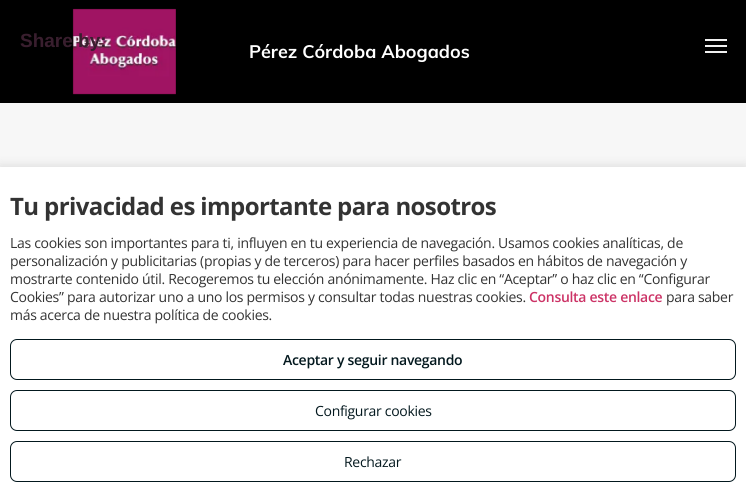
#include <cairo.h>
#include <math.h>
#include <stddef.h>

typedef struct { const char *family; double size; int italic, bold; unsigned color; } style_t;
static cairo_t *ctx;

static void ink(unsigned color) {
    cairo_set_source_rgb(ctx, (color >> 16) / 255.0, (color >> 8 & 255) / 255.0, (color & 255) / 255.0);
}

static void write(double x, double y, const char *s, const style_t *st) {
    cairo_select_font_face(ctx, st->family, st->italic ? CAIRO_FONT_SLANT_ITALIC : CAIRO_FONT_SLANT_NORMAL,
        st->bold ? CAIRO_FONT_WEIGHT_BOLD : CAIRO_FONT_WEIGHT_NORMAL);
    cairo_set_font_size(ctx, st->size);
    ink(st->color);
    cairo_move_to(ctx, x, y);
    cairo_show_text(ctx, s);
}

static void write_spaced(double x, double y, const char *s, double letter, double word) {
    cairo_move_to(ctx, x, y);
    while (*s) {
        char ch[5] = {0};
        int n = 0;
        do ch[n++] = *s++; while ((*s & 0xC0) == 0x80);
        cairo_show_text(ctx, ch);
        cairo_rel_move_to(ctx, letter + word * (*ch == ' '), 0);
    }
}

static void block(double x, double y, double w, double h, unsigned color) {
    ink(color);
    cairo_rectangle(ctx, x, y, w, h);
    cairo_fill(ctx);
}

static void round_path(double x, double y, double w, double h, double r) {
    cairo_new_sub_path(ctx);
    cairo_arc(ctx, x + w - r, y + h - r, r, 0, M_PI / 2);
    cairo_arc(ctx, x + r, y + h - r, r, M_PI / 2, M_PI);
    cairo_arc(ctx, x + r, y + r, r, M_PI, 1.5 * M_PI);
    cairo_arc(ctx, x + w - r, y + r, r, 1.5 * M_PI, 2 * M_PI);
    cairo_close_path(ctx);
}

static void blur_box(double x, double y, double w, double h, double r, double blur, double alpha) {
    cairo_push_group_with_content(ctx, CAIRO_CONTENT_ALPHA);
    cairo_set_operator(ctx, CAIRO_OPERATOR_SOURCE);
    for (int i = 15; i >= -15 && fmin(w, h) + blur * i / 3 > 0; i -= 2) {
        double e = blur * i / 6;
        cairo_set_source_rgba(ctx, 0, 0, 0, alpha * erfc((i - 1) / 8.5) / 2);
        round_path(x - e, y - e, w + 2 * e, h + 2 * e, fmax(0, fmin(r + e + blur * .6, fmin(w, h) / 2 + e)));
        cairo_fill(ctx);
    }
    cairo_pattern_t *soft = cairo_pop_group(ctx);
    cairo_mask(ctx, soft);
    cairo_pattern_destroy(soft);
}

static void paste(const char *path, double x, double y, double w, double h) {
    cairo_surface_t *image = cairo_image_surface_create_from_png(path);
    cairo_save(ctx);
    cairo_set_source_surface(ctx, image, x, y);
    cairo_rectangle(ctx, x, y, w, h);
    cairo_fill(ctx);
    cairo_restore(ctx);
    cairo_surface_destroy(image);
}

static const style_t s1 = {"Liberation Sans", 19, 0, 1, 0x391e2e};
static const style_t s2 = {"Muli", 18, 0, 1, 0xffffff};

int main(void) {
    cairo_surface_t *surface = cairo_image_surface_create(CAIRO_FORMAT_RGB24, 746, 497);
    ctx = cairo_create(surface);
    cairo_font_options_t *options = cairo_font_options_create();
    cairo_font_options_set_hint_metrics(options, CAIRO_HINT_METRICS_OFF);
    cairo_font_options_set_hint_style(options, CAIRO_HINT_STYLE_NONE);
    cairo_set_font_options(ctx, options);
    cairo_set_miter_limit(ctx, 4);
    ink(0xf7f7f7);
    cairo_paint(ctx);
    block(0, 0, 746, 103, 0x000000);
    paste("pic1.png", 72, 8, 104, 87);
    write(20, 47, "Share by:", &s1);
    write(249, 58, "Pérez Córdoba Abogados", &s2);
    block(705, 39, 22, 2, 0xf0f0f0);
    block(705, 45, 22, 2, 0xf0f0f0);
    block(705, 51, 22, 2, 0xf0f0f0);
    ink(0x000000);
    blur_box(0, 165, 746, 330, 0, 5, 0.1);
    block(0, 167, 746, 330, 0xffffff);
    cairo_select_font_face(ctx, "Open Sans", CAIRO_FONT_SLANT_NORMAL, CAIRO_FONT_WEIGHT_BOLD);
    cairo_set_font_size(ctx, 24);
    ink(0x333333);
    write_spaced(10, 215, "Tu privacidad es importante para nosotros", -0.6, 0);
    cairo_select_font_face(ctx, "Open Sans", CAIRO_FONT_SLANT_NORMAL, CAIRO_FONT_WEIGHT_NORMAL);
    cairo_set_font_size(ctx, 14);
    write_spaced(10, 248, "Las cookies son importantes para ti, influyen en tu experiencia de navegación. Usamos cookies analíticas, de", -0.3, 0);
    write_spaced(10, 266, "personalización y publicitarias (propias y de terceros) para hacer perfiles basados en hábitos de navegación y", -0.3, 0);
    write_spaced(10, 284, "mostrarte contenido útil. Recogeremos tu elección anónimamente. Haz clic en “Aceptar” o haz clic en “Configurar", -0.3, 0);
    write_spaced(10, 302, "Cookies” para autorizar uno a uno los permisos y consultar todas nuestras cookies.", -0.3, 0);
    cairo_select_font_face(ctx, "Open Sans SemiBold", CAIRO_FONT_SLANT_NORMAL, CAIRO_FONT_WEIGHT_NORMAL);
    ink(0xcc3366);
    write_spaced(529, 302, "Consulta este enlace", -0.3, 0);
    cairo_select_font_face(ctx, "Open Sans", CAIRO_FONT_SLANT_NORMAL, CAIRO_FONT_WEIGHT_NORMAL);
    ink(0x333333);
    write_spaced(666, 302, "para saber", -0.3, 0);
    write_spaced(10, 320, "más acerca de nuestra política de cookies.", -0.3, 0);
    round_path(10.5, 339.5, 725, 40, 6.5);
    ink(0x03181e);
    cairo_set_line_width(ctx, 1);
    cairo_stroke(ctx);
    cairo_select_font_face(ctx, "Open Sans SemiBold", CAIRO_FONT_SLANT_NORMAL, CAIRO_FONT_WEIGHT_NORMAL);
    write_spaced(283, 365, "Aceptar y seguir navegando", -0.3, 0);
    round_path(10.5, 390.5, 725, 40, 6.5);
    cairo_stroke(ctx);
    cairo_select_font_face(ctx, "Open Sans", CAIRO_FONT_SLANT_NORMAL, CAIRO_FONT_WEIGHT_NORMAL);
    write_spaced(315, 416, "Configurar cookies", -0.3, 0);
    round_path(10.5, 441.5, 725, 40, 6.5);
    cairo_stroke(ctx);
    write_spaced(344, 467, "Rechazar", -0.3, 0);
    cairo_surface_write_to_png(surface, "screenshot.png");
    cairo_font_options_destroy(options);
    cairo_destroy(ctx);
    cairo_surface_destroy(surface);
    return 0;
}
